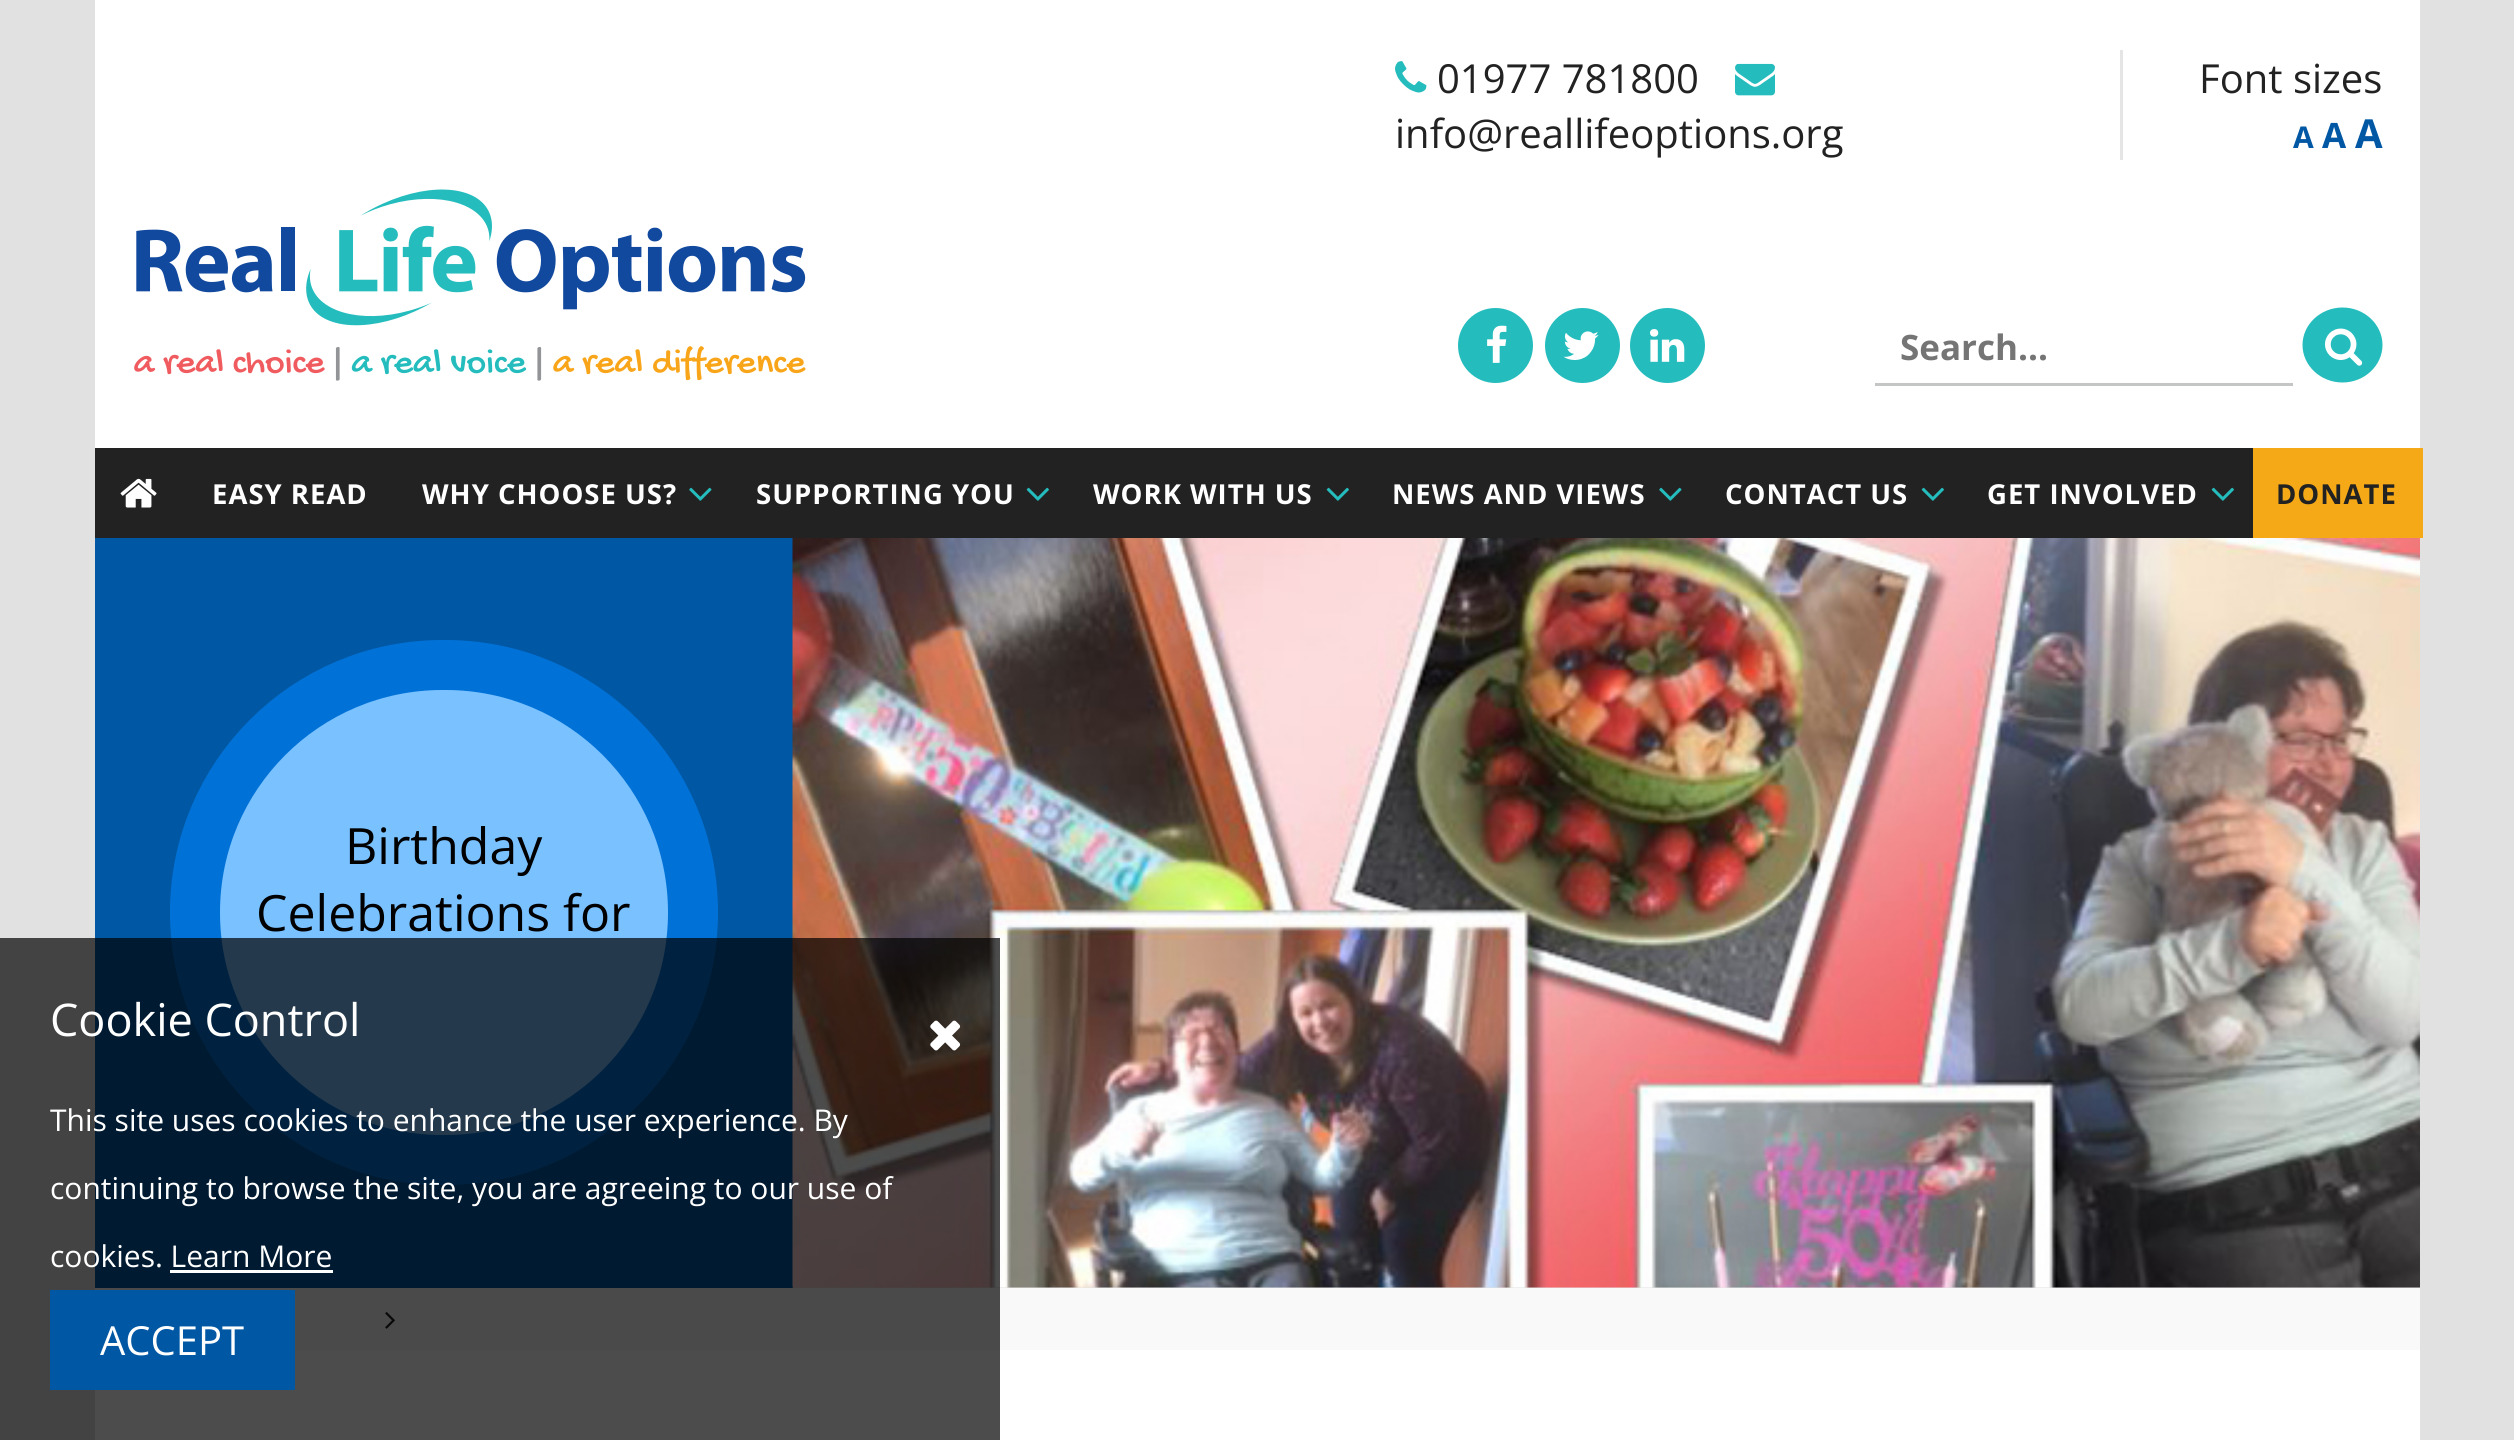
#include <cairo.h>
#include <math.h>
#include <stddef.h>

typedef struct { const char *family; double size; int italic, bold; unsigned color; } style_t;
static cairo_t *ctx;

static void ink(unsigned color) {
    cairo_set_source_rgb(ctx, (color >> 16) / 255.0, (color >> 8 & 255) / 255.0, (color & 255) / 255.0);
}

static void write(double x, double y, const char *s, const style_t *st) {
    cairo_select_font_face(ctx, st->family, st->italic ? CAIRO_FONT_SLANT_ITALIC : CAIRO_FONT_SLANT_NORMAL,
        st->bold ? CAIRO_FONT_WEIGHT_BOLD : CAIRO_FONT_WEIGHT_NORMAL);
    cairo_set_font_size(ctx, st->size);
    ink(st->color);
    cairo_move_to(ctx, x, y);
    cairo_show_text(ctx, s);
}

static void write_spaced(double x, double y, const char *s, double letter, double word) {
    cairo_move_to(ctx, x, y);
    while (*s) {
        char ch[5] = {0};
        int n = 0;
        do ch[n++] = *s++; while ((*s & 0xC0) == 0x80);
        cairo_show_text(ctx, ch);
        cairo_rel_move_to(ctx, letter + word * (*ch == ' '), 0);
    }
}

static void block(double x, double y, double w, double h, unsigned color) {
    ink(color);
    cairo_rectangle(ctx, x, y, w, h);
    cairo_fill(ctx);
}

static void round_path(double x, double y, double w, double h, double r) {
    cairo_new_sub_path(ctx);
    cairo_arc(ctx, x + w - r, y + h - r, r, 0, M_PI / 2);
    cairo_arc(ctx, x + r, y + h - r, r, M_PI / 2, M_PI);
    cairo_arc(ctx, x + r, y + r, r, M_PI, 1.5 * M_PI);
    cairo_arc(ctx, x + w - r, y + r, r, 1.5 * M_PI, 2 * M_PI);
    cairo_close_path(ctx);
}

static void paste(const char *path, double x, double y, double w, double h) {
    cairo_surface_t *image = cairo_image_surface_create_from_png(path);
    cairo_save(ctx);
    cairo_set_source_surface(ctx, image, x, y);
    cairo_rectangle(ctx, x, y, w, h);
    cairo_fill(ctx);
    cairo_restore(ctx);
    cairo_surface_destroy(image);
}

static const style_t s1 = {"Open Sans", 40, 0, 0, 0x222222};
static const style_t s2 = {"Open Sans", 30, 0, 1, 0x0057a4};
static const style_t s3 = {"Open Sans", 35, 0, 1, 0x0057a4};
static const style_t s4 = {"Open Sans", 40, 0, 1, 0x0057a4};
static const style_t s5 = {"Open Sans", 35, 0, 1, 0x757575};
static const style_t s6 = {"Open Sans", 50, 0, 0, 0x000000};
static const style_t s7 = {"Open Sans", 45, 0, 0, 0xffffff};
static const style_t s8 = {"Open Sans", 30, 0, 0, 0xffffff};
static const style_t s9 = {"Open Sans", 40, 0, 0, 0xffffff};

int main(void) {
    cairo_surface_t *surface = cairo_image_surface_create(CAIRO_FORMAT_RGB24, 2514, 1440);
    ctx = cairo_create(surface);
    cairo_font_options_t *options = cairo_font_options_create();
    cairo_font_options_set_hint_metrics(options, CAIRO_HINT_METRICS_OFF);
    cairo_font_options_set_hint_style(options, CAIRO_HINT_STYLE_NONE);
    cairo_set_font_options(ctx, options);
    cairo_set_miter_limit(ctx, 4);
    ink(0xe1e1e1);
    cairo_paint(ctx);
    block(95, 0, 2325, 448, 0xffffff);
    paste("pic1.png", 1395, 61, 32, 32);
    write(1437, 93, "01977 781800", &s1);
    paste("pic2.png", 1735, 63, 40, 33);
    write(1395, 148, "info@reallifeoptions.org", &s1);
    block(2120, 50, 3, 110, 0xe5e5e5);
    write(2199, 93, "Font sizes", &s1);
    write(2293, 148, "A", &s2);
    write(2322, 148, "A", &s3);
    write(2355, 148, "A", &s4);
    paste("pic3.png", 134, 189, 672, 192);
    ink(0x25bcbd);
    cairo_arc(ctx, 1495.5, 345.5, 37.5, 0, 2 * M_PI);
    cairo_fill(ctx);
    paste("pic4.png", 1487, 325, 20, 38);
    cairo_arc(ctx, 1582.5, 345.5, 37.5, 0, 2 * M_PI);
    cairo_fill(ctx);
    paste("pic5.png", 1563, 331, 36, 29);
    cairo_arc(ctx, 1667.5, 345.5, 37.5, 0, 2 * M_PI);
    cairo_fill(ctx);
    paste("pic6.png", 1650, 329, 35, 33);
    block(1875, 383, 418, 3, 0xc4c5c5);
    write(1900, 360, "Search...", &s5);
    ink(0x25bcbd);
    cairo_new_path(ctx);
    cairo_move_to(ctx, 2342.5, 307.5);
    cairo_curve_to(ctx, 2364.5, 307.5, 2382.5, 324.5, 2382.5, 345);
    cairo_curve_to(ctx, 2382.5, 365.5, 2364.5, 382.5, 2342.5, 382.5);
    cairo_curve_to(ctx, 2320.5, 382.5, 2302.5, 365.5, 2302.5, 345);
    cairo_curve_to(ctx, 2302.5, 324.5, 2320.5, 307.5, 2342.5, 307.5);
    cairo_close_path(ctx);
    cairo_fill(ctx);
    paste("pic7.png", 2325, 328, 38, 38);
    block(95, 448, 2158, 90, 0x222222);
    paste("pic8.png", 120, 478, 37, 30);
    cairo_set_font_size(ctx, 27.5);
    ink(0xffffff);
    write_spaced(212, 504, "EASY READ", 1, 0);
    write_spaced(422, 504, "WHY CHOOSE US?", 1, 0);
    paste("pic9.png", 689, 487, 23, 14);
    write_spaced(756, 504, "SUPPORTING YOU", 1, 0);
    paste("pic10.png", 1026, 487, 23, 14);
    write_spaced(1093, 504, "WORK WITH US", 1, 0);
    paste("pic10.png", 1326, 487, 23, 14);
    write_spaced(1392, 504, "NEWS AND VIEWS", 1, 0);
    paste("pic9.png", 1659, 487, 23, 14);
    write_spaced(1725, 504, "CONTACT US", 1, 0);
    paste("pic10.png", 1921, 487, 23, 14);
    write_spaced(1987, 504, "GET INVOLVED", 1, 0);
    paste("pic10.png", 2211, 487, 23, 14);
    block(2253, 448, 170, 90, 0xf5a917);
    ink(0x222222);
    write_spaced(2276, 504, "DONATE", 1, 0);
    block(95, 538, 698, 750, 0x0057a4);
    ink(0x7ac1ff);
    round_path(195, 665, 498, 495, 247.5);
    cairo_fill_preserve(ctx);
    ink(0x0072d7);
    cairo_set_line_width(ctx, 50);
    cairo_stroke(ctx);
    write(345, 864, "Birthday", &s6);
    write(256, 931, "Celebrations for", &s6);
    paste("pic11.png", 792, 538, 1628, 750);
    block(95, 1288, 2325, 62, 0xf9f9f9);
    paste("pic12.png", 385, 1312, 10, 17);
    block(95, 1350, 2325, 90, 0xffffff);
    cairo_set_source_rgba(ctx, 0, 0, 0, 0.7);
    cairo_rectangle(ctx, 0, 938, 1000, 502);
    cairo_fill(ctx);
    write(50, 1036, "Cookie Control", &s7);
    paste("pic13.png", 930, 1020, 31, 31);
    write(50, 1131, "This site uses cookies to enhance the user experience. By", &s8);
    write(50, 1199, "continuing to browse the site, you are agreeing to our use of", &s8);
    write(50, 1267, "cookies. Learn More", &s8);
    block(170, 1270, 163, 3, 0xffffff);
    block(50, 1290, 245, 100, 0x0057a4);
    write(100, 1355, "ACCEPT", &s9);
    cairo_surface_write_to_png(surface, "screenshot.png");
    cairo_font_options_destroy(options);
    cairo_destroy(ctx);
    cairo_surface_destroy(surface);
    return 0;
}
